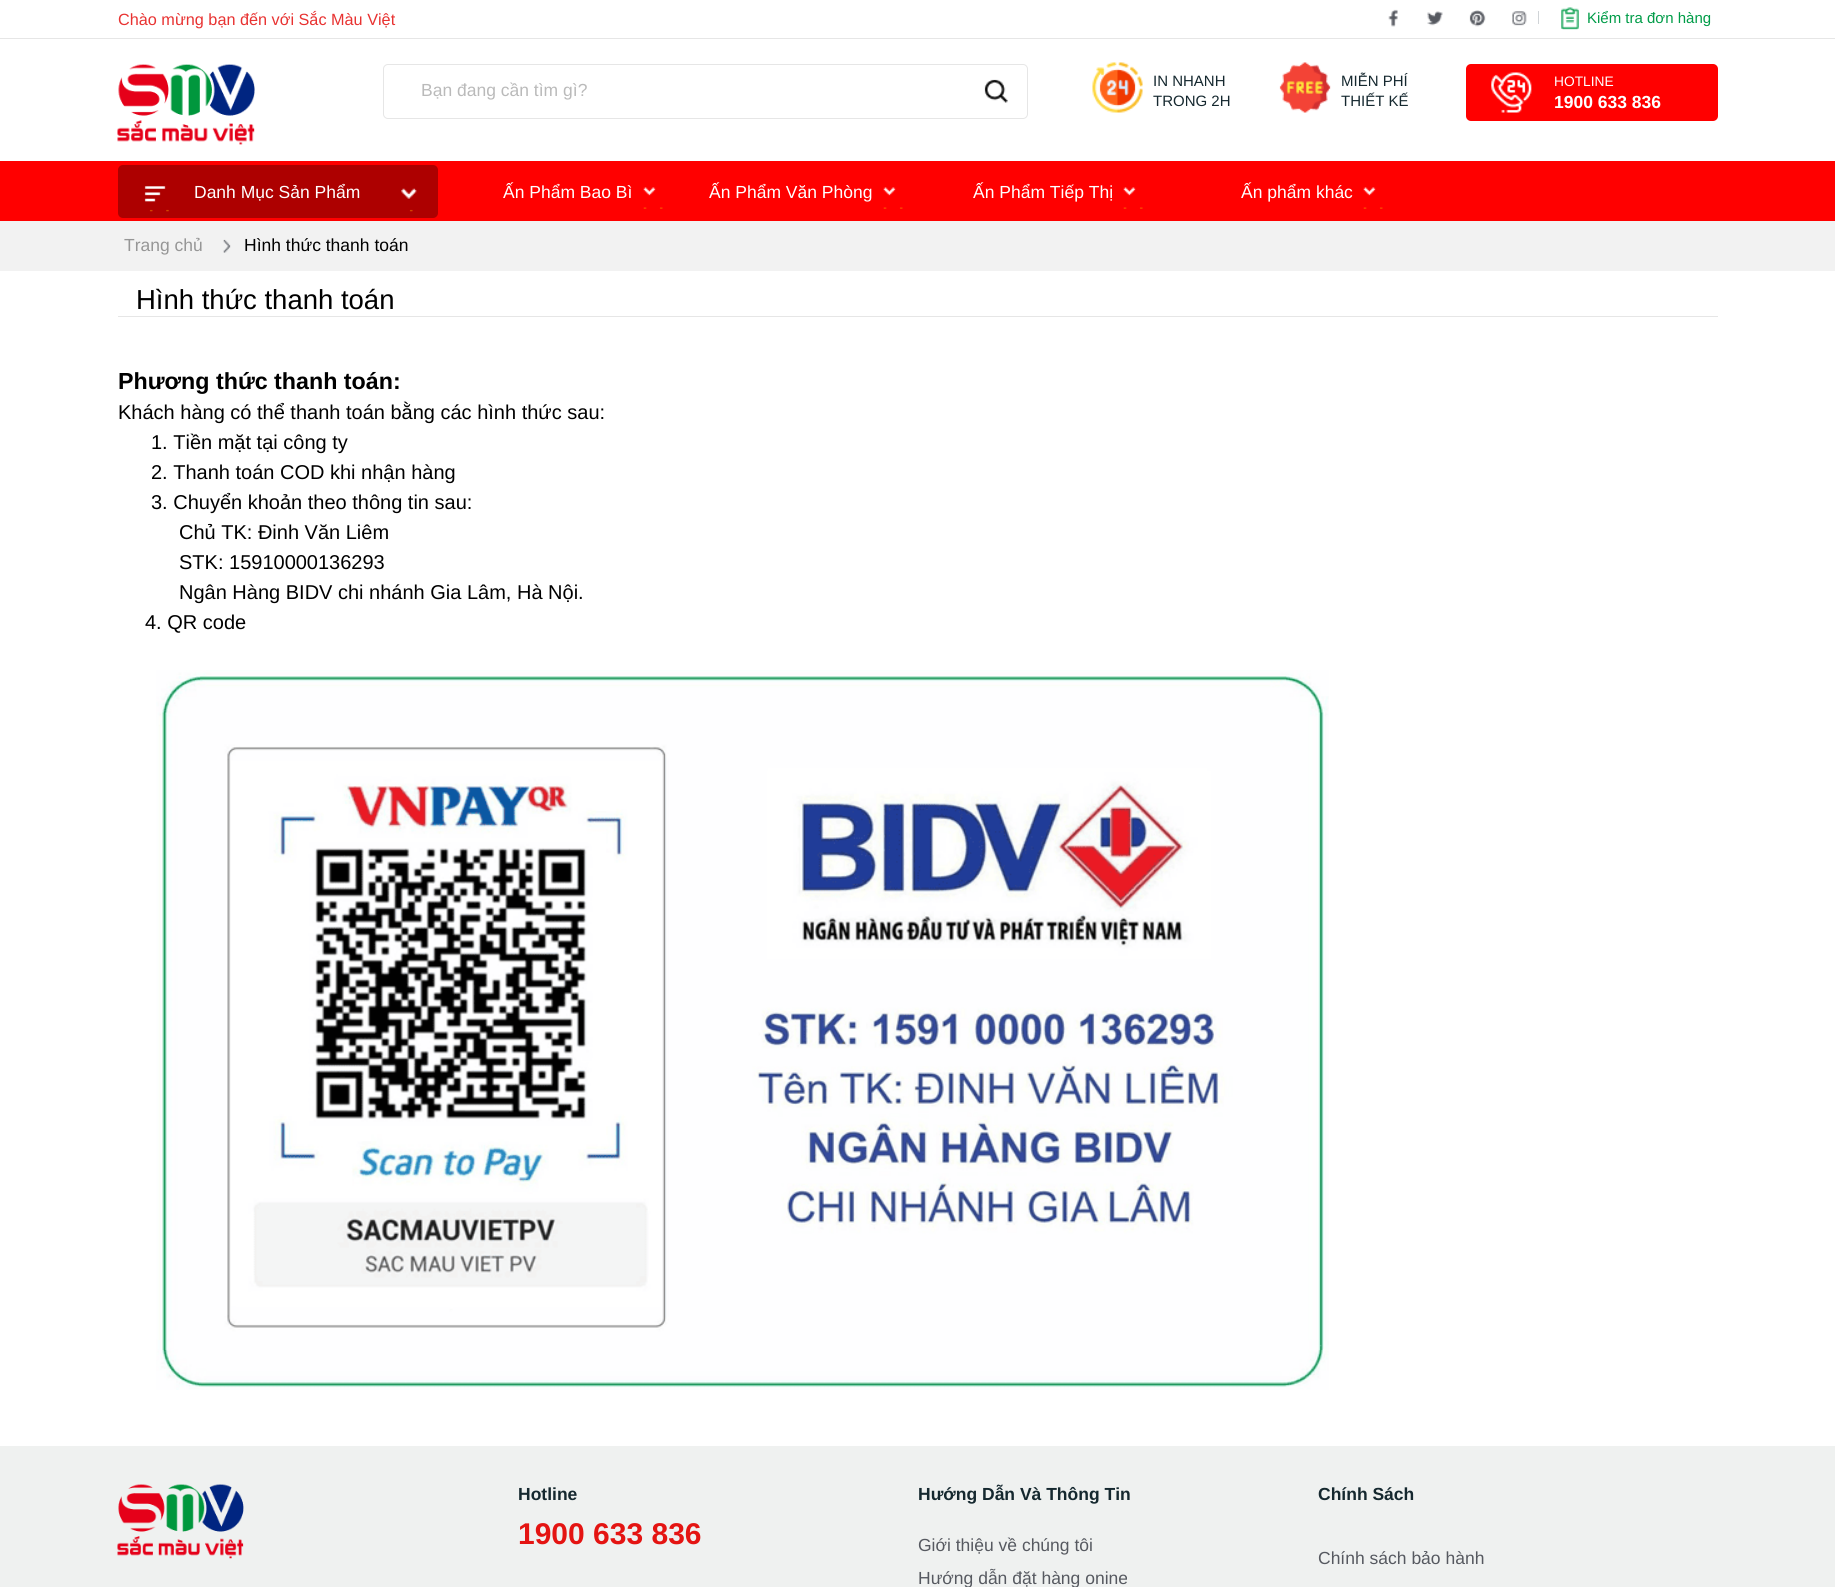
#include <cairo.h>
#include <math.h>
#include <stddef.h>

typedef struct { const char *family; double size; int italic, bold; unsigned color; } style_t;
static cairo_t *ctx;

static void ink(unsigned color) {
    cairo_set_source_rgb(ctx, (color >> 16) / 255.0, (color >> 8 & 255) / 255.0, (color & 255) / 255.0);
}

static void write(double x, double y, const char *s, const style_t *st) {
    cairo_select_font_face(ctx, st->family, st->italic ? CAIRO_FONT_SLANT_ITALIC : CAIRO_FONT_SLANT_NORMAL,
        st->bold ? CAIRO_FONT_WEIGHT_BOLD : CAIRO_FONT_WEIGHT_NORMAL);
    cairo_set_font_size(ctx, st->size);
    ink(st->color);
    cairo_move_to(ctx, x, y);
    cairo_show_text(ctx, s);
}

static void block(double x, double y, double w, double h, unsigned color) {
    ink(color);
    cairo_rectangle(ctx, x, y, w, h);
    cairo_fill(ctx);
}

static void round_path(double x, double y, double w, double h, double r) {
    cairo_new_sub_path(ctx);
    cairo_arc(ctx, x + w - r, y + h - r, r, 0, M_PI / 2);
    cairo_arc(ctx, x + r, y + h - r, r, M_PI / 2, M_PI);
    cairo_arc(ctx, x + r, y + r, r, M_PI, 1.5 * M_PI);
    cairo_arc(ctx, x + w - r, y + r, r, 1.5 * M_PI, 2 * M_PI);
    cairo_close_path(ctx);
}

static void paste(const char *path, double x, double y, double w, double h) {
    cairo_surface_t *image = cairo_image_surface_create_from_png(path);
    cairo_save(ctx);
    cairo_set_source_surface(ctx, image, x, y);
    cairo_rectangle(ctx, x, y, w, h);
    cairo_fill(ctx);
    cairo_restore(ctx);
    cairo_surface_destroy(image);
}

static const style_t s1 = {"Liberation Sans", 16.25, 0, 0, 0xe83231};
static const style_t s2 = {"Liberation Sans", 15, 0, 0, 0x009c48};
static const style_t s3 = {"Liberation Sans", 17.5, 0, 0, 0xbababa};
static const style_t s4 = {"Liberation Sans", 15, 0, 0, 0x15282f};
static const style_t s5 = {"Liberation Sans", 13.75, 0, 0, 0xffffff};
static const style_t s6 = {"Liberation Sans", 17.5, 0, 1, 0xffffff};
static const style_t s7 = {"Liberation Sans", 17.5, 0, 0, 0xffffff};
static const style_t s8 = {"Liberation Sans", 17.5, 0, 0, 0x969696};
static const style_t s9 = {"Liberation Sans", 17.5, 0, 0, 0x000000};
static const style_t s10 = {"Liberation Sans", 27.5, 0, 0, 0x000000};
static const style_t s11 = {"Liberation Sans", 23.25, 0, 1, 0x000000};
static const style_t s12 = {"Liberation Sans", 20, 0, 0, 0x000000};
static const style_t s13 = {"Liberation Sans", 17.5, 0, 1, 0x15282f};
static const style_t s14 = {"Liberation Sans", 30, 0, 1, 0xe41412};
static const style_t s15 = {"Liberation Sans", 17.5, 0, 0, 0x565960};

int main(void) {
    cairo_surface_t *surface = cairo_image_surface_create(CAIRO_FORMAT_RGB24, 1835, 1587);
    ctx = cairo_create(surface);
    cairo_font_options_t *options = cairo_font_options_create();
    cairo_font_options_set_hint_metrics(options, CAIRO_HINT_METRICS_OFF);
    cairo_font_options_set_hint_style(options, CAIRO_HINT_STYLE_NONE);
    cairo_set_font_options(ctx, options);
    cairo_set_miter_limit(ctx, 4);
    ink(0xffffff);
    cairo_paint(ctx);
    block(0, 38, 1835, 1, 0xe6e6e6);
    write(118, 25, "Chào mừng bạn đến với Sắc Màu Việt", &s1);
    paste("pic1.png", 1388, 9, 10, 18);
    paste("pic2.png", 1427, 11, 16, 15);
    paste("pic3.png", 1469, 10, 17, 17);
    paste("pic4.png", 1512, 11, 15, 15);
    block(1538, 11, 1, 13, 0xd0d4d7);
    paste("pic5.png", 1561, 7, 18, 23);
    write(1587, 23, "Kiểm tra đơn hàng", &s2);
    paste("pic6.png", 117, 64, 138, 81);
    round_path(383.5, 64.5, 644, 54, 4.5);
    ink(0xe6e6e6);
    cairo_set_line_width(ctx, 1);
    cairo_stroke(ctx);
    write(421, 96, "Bạn đang cần tìm gì?", &s3);
    paste("pic7.png", 984, 79, 24, 24);
    paste("pic8.png", 1092, 62, 51, 51);
    write(1153, 86, "IN NHANH", &s4);
    write(1153, 106, "TRONG 2H", &s4);
    paste("pic9.png", 1279, 62, 52, 51);
    write(1341, 86, "MIỄN PHÍ", &s4);
    write(1341, 106, "THIẾT KẾ", &s4);
    ink(0xff0000);
    round_path(1466, 64, 252, 57, 5);
    cairo_fill(ctx);
    paste("pic10.png", 1491, 72, 41, 41);
    write(1554, 86, "HOTLINE", &s5);
    write(1554, 108, "1900 633 836", &s6);
    block(0, 161, 1835, 60, 0xff0000);
    ink(0xad0000);
    round_path(118, 165, 320, 53, 5);
    cairo_fill(ctx);
    paste("pic11.png", 144, 186, 25, 26);
    write(194, 198, "Danh Mục Sản Phẩm", &s7);
    paste("pic12.png", 401, 188, 16, 24);
    write(503, 198, "Ấn Phẩm Bao Bì", &s7);
    paste("pic13.png", 643, 187, 20, 22);
    write(709, 198, "Ấn Phẩm Văn Phòng", &s7);
    paste("pic13.png", 883, 187, 20, 22);
    write(973, 198, "Ấn Phẩm Tiếp Thị", &s7);
    paste("pic14.png", 1123, 187, 20, 22);
    write(1241, 198, "Ấn phẩm khác", &s7);
    paste("pic13.png", 1363, 187, 20, 22);
    block(0, 221, 1835, 50, 0xf2f2f2);
    write(124, 251, "Trang chủ", &s8);
    paste("pic15.png", 223, 239, 8, 14);
    write(244, 251, "Hình thức thanh toán", &s9);
    block(118, 316, 1600, 1, 0xe6e6e6);
    write(136, 309, "Hình thức thanh toán", &s10);
    write(118, 389, "Phương thức thanh toán:", &s11);
    write(118, 419, "Khách hàng có thể thanh toán bằng các hình thức sau:", &s12);
    write(151, 449, "1. Tiền mặt tại công ty", &s12);
    write(151, 479, "2. Thanh toán COD khi nhận hàng", &s12);
    write(151, 509, "3. Chuyển khoản theo thông tin sau:", &s12);
    write(179, 539, "Chủ TK: Đinh Văn Liêm", &s12);
    write(179, 569, "STK: 15910000136293", &s12);
    write(179, 599, "Ngân Hàng BIDV chi nhánh Gia Lâm, Hà Nội.", &s12);
    write(145, 629, "4. QR code", &s12);
    paste("pic16.png", 156, 670, 1173, 720);
    block(0, 1446, 1835, 141, 0xeff1f0);
    paste("pic17.png", 117, 1484, 127, 75);
    write(518, 1500, "Hotline", &s13);
    write(518, 1544, "1900 633 836", &s14);
    write(918, 1500, "Hướng Dẫn Và Thông Tin", &s13);
    write(918, 1551, "Giới thiệu về chúng tôi", &s15);
    write(918, 1584, "Hướng dẫn đặt hàng onine", &s15);
    write(1318, 1500, "Chính Sách", &s13);
    write(1318, 1564, "Chính sách bảo hành", &s15);
    cairo_surface_write_to_png(surface, "screenshot.png");
    cairo_font_options_destroy(options);
    cairo_destroy(ctx);
    cairo_surface_destroy(surface);
    return 0;
}
